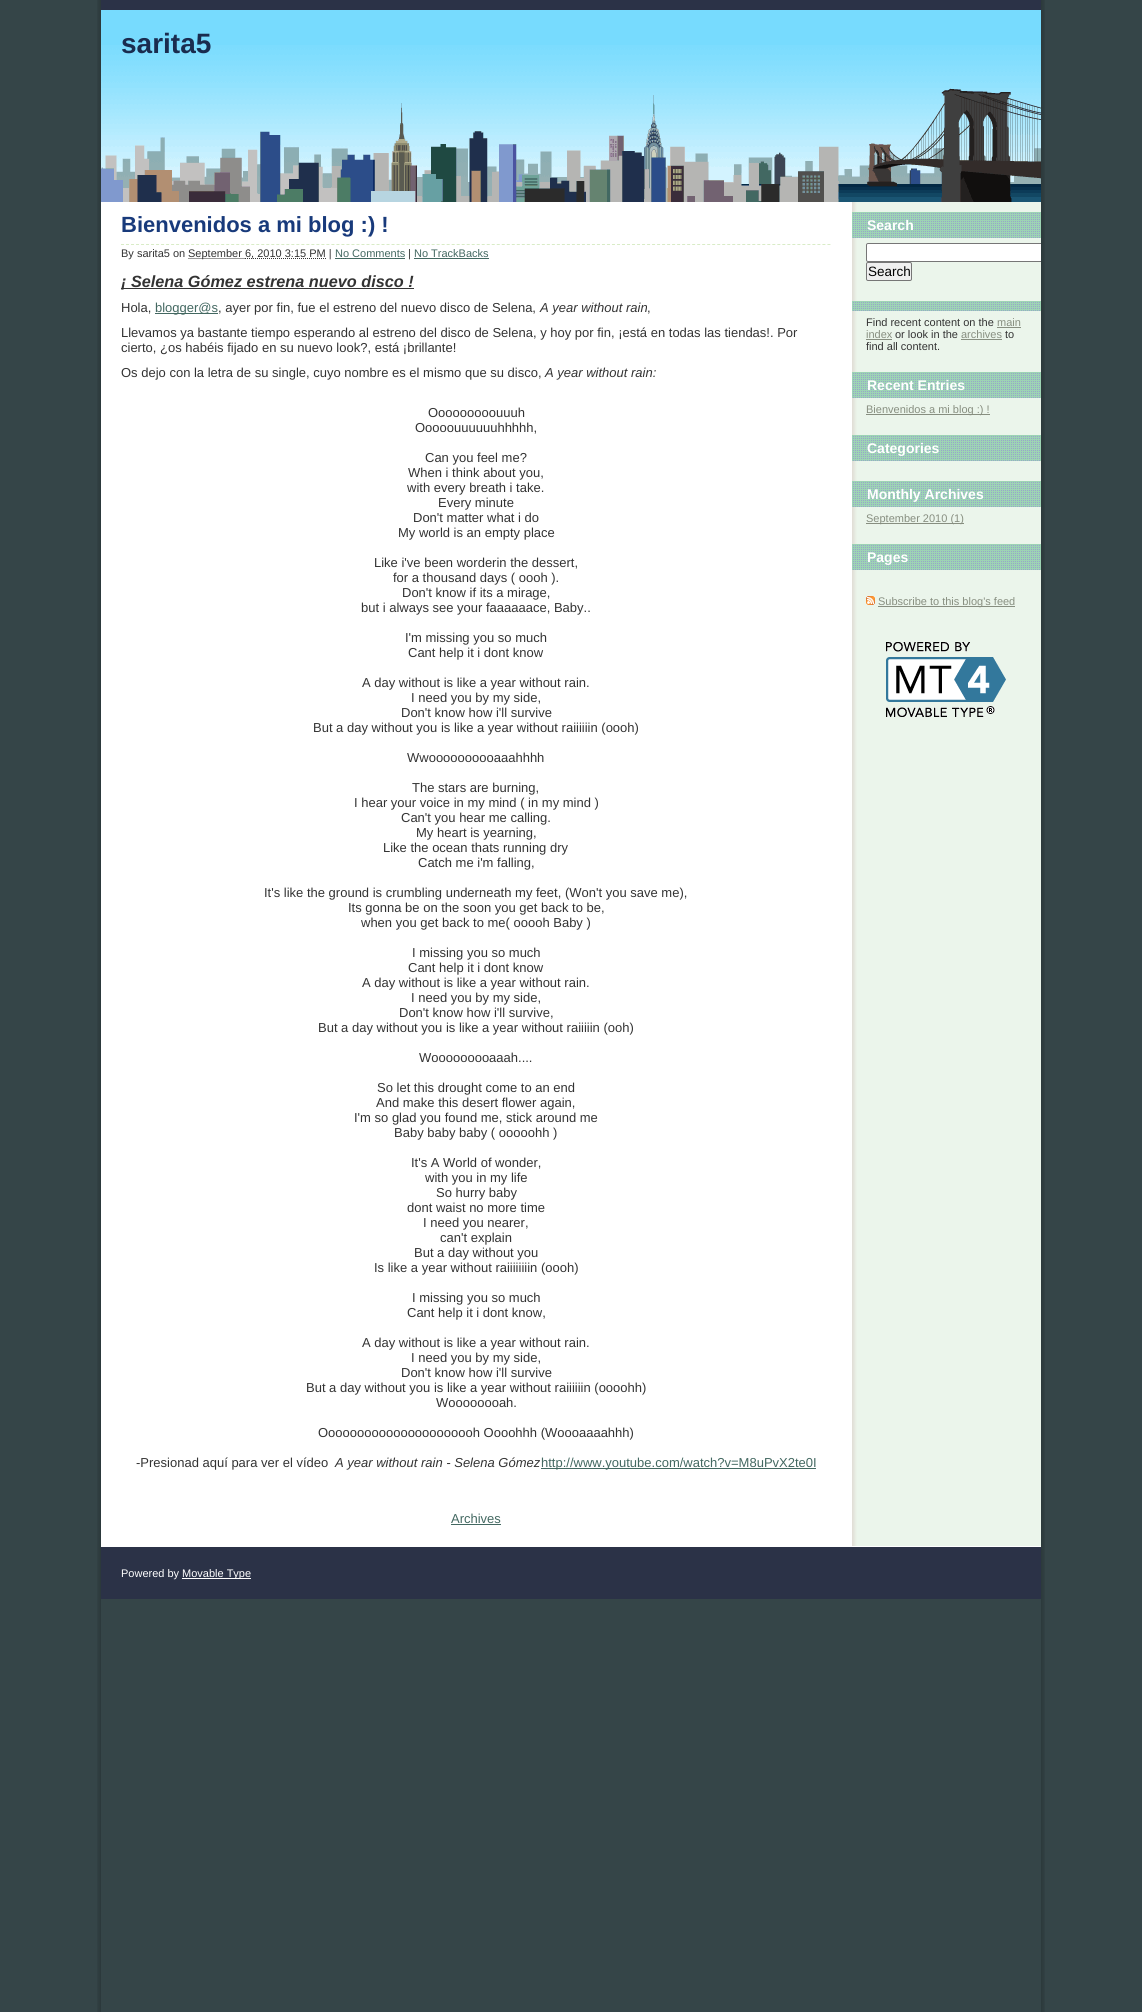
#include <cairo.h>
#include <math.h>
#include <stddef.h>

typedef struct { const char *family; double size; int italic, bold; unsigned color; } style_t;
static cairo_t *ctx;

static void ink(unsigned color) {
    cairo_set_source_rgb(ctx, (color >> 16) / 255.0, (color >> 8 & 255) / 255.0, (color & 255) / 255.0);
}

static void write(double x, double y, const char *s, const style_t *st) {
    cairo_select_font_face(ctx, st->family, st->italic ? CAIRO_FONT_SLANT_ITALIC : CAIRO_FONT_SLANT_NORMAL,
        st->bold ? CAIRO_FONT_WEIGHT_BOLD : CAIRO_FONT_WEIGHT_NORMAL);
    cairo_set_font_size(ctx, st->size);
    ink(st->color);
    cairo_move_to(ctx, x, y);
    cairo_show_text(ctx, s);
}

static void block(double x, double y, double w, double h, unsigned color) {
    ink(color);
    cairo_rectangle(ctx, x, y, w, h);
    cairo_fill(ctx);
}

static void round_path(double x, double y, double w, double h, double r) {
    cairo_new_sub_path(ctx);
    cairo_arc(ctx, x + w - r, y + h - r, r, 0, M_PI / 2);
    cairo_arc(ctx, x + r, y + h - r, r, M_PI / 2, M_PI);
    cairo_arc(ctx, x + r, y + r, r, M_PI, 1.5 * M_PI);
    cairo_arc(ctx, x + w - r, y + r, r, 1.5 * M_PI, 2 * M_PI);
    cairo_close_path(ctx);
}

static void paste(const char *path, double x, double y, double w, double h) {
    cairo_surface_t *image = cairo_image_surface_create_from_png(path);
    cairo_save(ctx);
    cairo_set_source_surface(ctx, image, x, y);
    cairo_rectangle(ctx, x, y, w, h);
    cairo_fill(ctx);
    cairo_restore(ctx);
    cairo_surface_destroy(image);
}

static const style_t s1 = {"Liberation Sans", 28, 0, 1, 0x1a2c4f};
static const style_t s2 = {"Liberation Sans", 22, 0, 1, 0x183a7b};
static const style_t s3 = {"Liberation Sans", 11, 0, 0, 0x333333};
static const style_t s4 = {"Liberation Sans", 11, 0, 0, 0x436861};
static const style_t s5 = {"Liberation Sans", 16.25, 1, 1, 0x333333};
static const style_t s6 = {"Liberation Sans", 13, 0, 0, 0x333333};
static const style_t s7 = {"Liberation Sans", 13, 0, 0, 0x436861};
static const style_t s8 = {"Liberation Sans", 13, 1, 0, 0x333333};
static const style_t s9 = {"Liberation Sans", 14, 0, 1, 0xffffff};
static const style_t s10 = {"Liberation Sans", 13.5, 0, 0, 0x000000};
static const style_t s11 = {"Liberation Sans", 11, 0, 0, 0x878e80};
static const style_t s12 = {"Liberation Sans", 11, 0, 0, 0xffffff};

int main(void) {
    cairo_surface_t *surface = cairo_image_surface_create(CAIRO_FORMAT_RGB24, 1142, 2012);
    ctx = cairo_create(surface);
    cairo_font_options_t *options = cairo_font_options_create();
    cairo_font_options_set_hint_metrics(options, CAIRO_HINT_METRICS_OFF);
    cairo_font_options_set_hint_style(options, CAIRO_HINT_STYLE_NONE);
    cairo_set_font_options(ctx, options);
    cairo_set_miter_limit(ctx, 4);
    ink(0x354548);
    cairo_paint(ctx);
    paste("pic1.png", 97, 0, 948, 2012);
    block(101, 202, 940, 1345, 0xffffff);
    block(101, 10, 940, 35, 0x77dbfe);
    paste("pic2.png", 101, 45, 940, 157);
    block(101, 0, 940, 10, 0x2b3247);
    write(121, 53, "sarita5", &s1);
    paste("pic3.png", 852, 202, 189, 1344);
    write(121, 232, "Bienvenidos a mi blog :) !", &s2);
    cairo_new_path(ctx);
    cairo_move_to(ctx, 121, 244.5);
    cairo_line_to(ctx, 831, 244.5);
    ink(0xd9ecc7);
    cairo_set_line_width(ctx, 1);
    cairo_set_dash(ctx, (double[]){3, 2.01}, 2, 0);
    cairo_stroke(ctx);
    write(121, 257, "By sarita5 on", &s3);
    cairo_new_path(ctx);
    cairo_move_to(ctx, 188.5, 258.5);
    cairo_line_to(ctx, 245, 258.5);
    cairo_set_dash(ctx, (double[]){1, 1}, 2, 0);
    cairo_stroke(ctx);
    write(188, 257, "September", &s3);
    cairo_new_path(ctx);
    cairo_move_to(ctx, 245, 258.5);
    cairo_line_to(ctx, 285, 258.5);
    cairo_stroke(ctx);
    write(245, 257, "6, 2010 3:15 PM |", &s3);
    cairo_new_path(ctx);
    cairo_move_to(ctx, 285, 258.5);
    cairo_line_to(ctx, 326, 258.5);
    cairo_stroke(ctx);
    write(335, 257, "No Comments", &s4);
    block(335, 258, 70, 1, 0x436861);
    write(408, 257, "|", &s3);
    write(414, 257, "No TrackBacks", &s4);
    block(414, 258, 75, 1, 0x436861);
    block(121, 288, 293, 1, 0x333333);
    write(121, 287, "¡ Selena Gómez estrena nuevo disco !", &s5);
    write(121, 312, "Hola,", &s6);
    block(155, 313, 63, 1, 0x436861);
    write(155, 312, "blogger@s", &s7);
    write(218, 312, ", ayer por fin, fue el estreno del nuevo disco de Selena,", &s6);
    write(540, 312, "A year without rain", &s8);
    write(647, 312, ",", &s6);
    write(121, 337, "Llevamos ya bastante tiempo esperando al estreno del disco de Selena, y hoy por fin, ¡está en todas las tiendas!. Por", &s6);
    write(121, 352, "cierto, ¿os habéis fijado en su nuevo look?, está ¡brillante!", &s6);
    write(121, 377, "Os dejo con la letra de su single, cuyo nombre es el mismo que su disco,", &s6);
    write(545, 377, "A year without rain:", &s8);
    write(428, 417, "Ooooooooouuuh", &s6);
    write(415, 432, "Ooooouuuuuuhhhhh,", &s6);
    write(425, 462, "Can you feel me?", &s6);
    write(408, 477, "When i think about you,", &s6);
    write(407, 492, "with every breath i take.", &s6);
    write(438, 507, "Every minute", &s6);
    write(413, 522, "Don't matter what i do", &s6);
    write(398, 537, "My world is an empty place", &s6);
    write(374, 567, "Like i've been worderin the dessert,", &s6);
    write(393, 582, "for a thousand days ( oooh ).", &s6);
    write(402, 597, "Don't know if its a mirage,", &s6);
    write(361, 612, "but i always see your faaaaaace, Baby..", &s6);
    write(405, 642, "I'm missing you so much", &s6);
    write(408, 657, "Cant help it i dont know", &s6);
    write(362, 687, "A day without is like a year without rain.", &s6);
    write(411, 702, "I need you by my side,", &s6);
    write(401, 717, "Don't know how i'll survive", &s6);
    write(313, 732, "But a day without you is like a year without raiiiiiin (oooh)", &s6);
    write(407, 762, "Wwoooooooooaaahhhh", &s6);
    write(412, 792, "The stars are burning,", &s6);
    write(354, 807, "I hear your voice in my mind ( in my mind )", &s6);
    write(401, 822, "Can't you hear me calling.", &s6);
    write(416, 837, "My heart is yearning,", &s6);
    write(383, 852, "Like the ocean thats running dry", &s6);
    write(418, 867, "Catch me i'm falling,", &s6);
    write(264, 897, "It's like the ground is crumbling underneath my feet, (Won't you save me),", &s6);
    write(348, 912, "Its gonna be on the soon you get back to be,", &s6);
    write(361, 927, "when you get back to me( ooooh Baby )", &s6);
    write(412, 957, "I missing you so much", &s6);
    write(408, 972, "Cant help it i dont know", &s6);
    write(362, 987, "A day without is like a year without rain.", &s6);
    write(411, 1002, "I need you by my side,", &s6);
    write(399, 1017, "Don't know how i'll survive,", &s6);
    write(318, 1032, "But a day without you is like a year without raiiiiin (ooh)", &s6);
    write(419, 1062, "Wooooooooaaah....", &s6);
    write(377, 1092, "So let this drought come to an end", &s6);
    write(376, 1107, "And make this desert flower again,", &s6);
    write(354, 1122, "I'm so glad you found me, stick around me", &s6);
    write(394, 1137, "Baby baby baby ( ooooohh )", &s6);
    write(411, 1167, "It's A World of wonder,", &s6);
    write(425, 1182, "with you in my life", &s6);
    write(436, 1197, "So hurry baby", &s6);
    write(407, 1212, "dont waist no more time", &s6);
    write(423, 1227, "I need you nearer,", &s6);
    write(440, 1242, "can't explain", &s6);
    write(414, 1257, "But a day without you", &s6);
    write(374, 1272, "Is like a year without raiiiiiiiin (oooh)", &s6);
    write(412, 1302, "I missing you so much", &s6);
    write(407, 1317, "Cant help it i dont know,", &s6);
    write(362, 1347, "A day without is like a year without rain.", &s6);
    write(411, 1362, "I need you by my side,", &s6);
    write(401, 1377, "Don't know how i'll survive", &s6);
    write(306, 1392, "But a day without you is like a year without raiiiiiin (oooohh)", &s6);
    write(436, 1407, "Woooooooah.", &s6);
    write(318, 1437, "Oooooooooooooooooooooh Oooohhh (Woooaaaahhh)", &s6);
    write(136, 1467, "-Presionad aquí para ver el vídeo", &s6);
    write(335, 1467, "A year without rain - Selena Gómez", &s8);
    block(541, 1468, 275, 1, 0x436861);
    write(541, 1467, "http://www.youtube.com/watch?v=M8uPvX2te0I", &s7);
    write(451, 1523, "Archives", &s7);
    block(451, 1524, 50, 1, 0x436861);
    block(852, 212, 189, 26, 0x9dd4b4);
    paste("pic4.png", 852, 213, 188, 25);
    write(867, 230, "Search", &s9);
    cairo_new_path(ctx);
    cairo_move_to(ctx, 868, 243);
    cairo_line_to(ctx, 1041, 243);
    cairo_line_to(ctx, 1041, 262);
    cairo_line_to(ctx, 868, 262);
    cairo_curve_to(ctx, 867, 262, 866, 261, 866, 260);
    cairo_line_to(ctx, 866, 245);
    cairo_curve_to(ctx, 866, 244, 867, 243, 868, 243);
    cairo_close_path(ctx);
    cairo_fill(ctx);
    cairo_save(ctx);
    cairo_rectangle(ctx, 851, 212, 190, 89);
    cairo_clip(ctx);
    round_path(866.5, 243.5, 180, 18, 1.5);
    ink(0x767676);
    cairo_set_dash(ctx, NULL, 0, 0);
    cairo_stroke(ctx);
    cairo_restore(ctx);
    ink(0xefefef);
    round_path(866.5, 262.5, 45, 18, 1.5);
    cairo_fill_preserve(ctx);
    ink(0x767676);
    cairo_set_dash(ctx, NULL, 0, 0);
    cairo_stroke(ctx);
    write(868, 276, "Search", &s10);
    block(852, 301, 189, 10, 0x9dd4b4);
    paste("pic5.png", 852, 302, 188, 9);
    write(866, 326, "Find recent content on the", &s3);
    write(997, 326, "main", &s11);
    block(997, 327, 24, 1, 0x878e80);
    write(866, 338, "index", &s11);
    block(866, 339, 26, 1, 0x878e80);
    write(895, 338, "or look in the", &s3);
    write(961, 338, "archives", &s11);
    block(961, 339, 41, 1, 0x878e80);
    write(1005, 338, "to", &s3);
    write(866, 350, "find all content.", &s3);
    block(852, 372, 189, 26, 0x9dd4b4);
    paste("pic4.png", 852, 373, 188, 25);
    write(867, 390, "Recent Entries", &s9);
    block(866, 414, 124, 1, 0x878e80);
    write(866, 413, "Bienvenidos a mi blog :) !", &s11);
    block(852, 435, 189, 26, 0x9dd4b4);
    paste("pic4.png", 852, 436, 188, 25);
    write(867, 453, "Categories", &s9);
    block(852, 481, 189, 26, 0x9dd4b4);
    paste("pic4.png", 852, 482, 188, 25);
    write(867, 499, "Monthly Archives", &s9);
    block(866, 523, 98, 1, 0x878e80);
    write(866, 522, "September 2010 (1)", &s11);
    block(852, 544, 189, 26, 0x9dd4b4);
    paste("pic4.png", 852, 545, 188, 25);
    write(867, 562, "Pages", &s9);
    paste("pic6.png", 866, 596, 9, 9);
    block(878, 606, 137, 1, 0x878e80);
    write(878, 605, "Subscribe to this blog's feed", &s11);
    paste("pic7.png", 886, 642, 120, 75);
    block(101, 1547, 940, 52, 0x2b3247);
    write(121, 1577, "Powered by", &s12);
    block(182, 1578, 69, 1, 0xffffff);
    cairo_save(ctx);
    cairo_rectangle(ctx, 121, 1567, 900, 12);
    cairo_clip(ctx);
    write(182, 1577, "Movable Type", &s12);
    cairo_restore(ctx);
    cairo_surface_write_to_png(surface, "screenshot.png");
    cairo_font_options_destroy(options);
    cairo_destroy(ctx);
    cairo_surface_destroy(surface);
    return 0;
}
